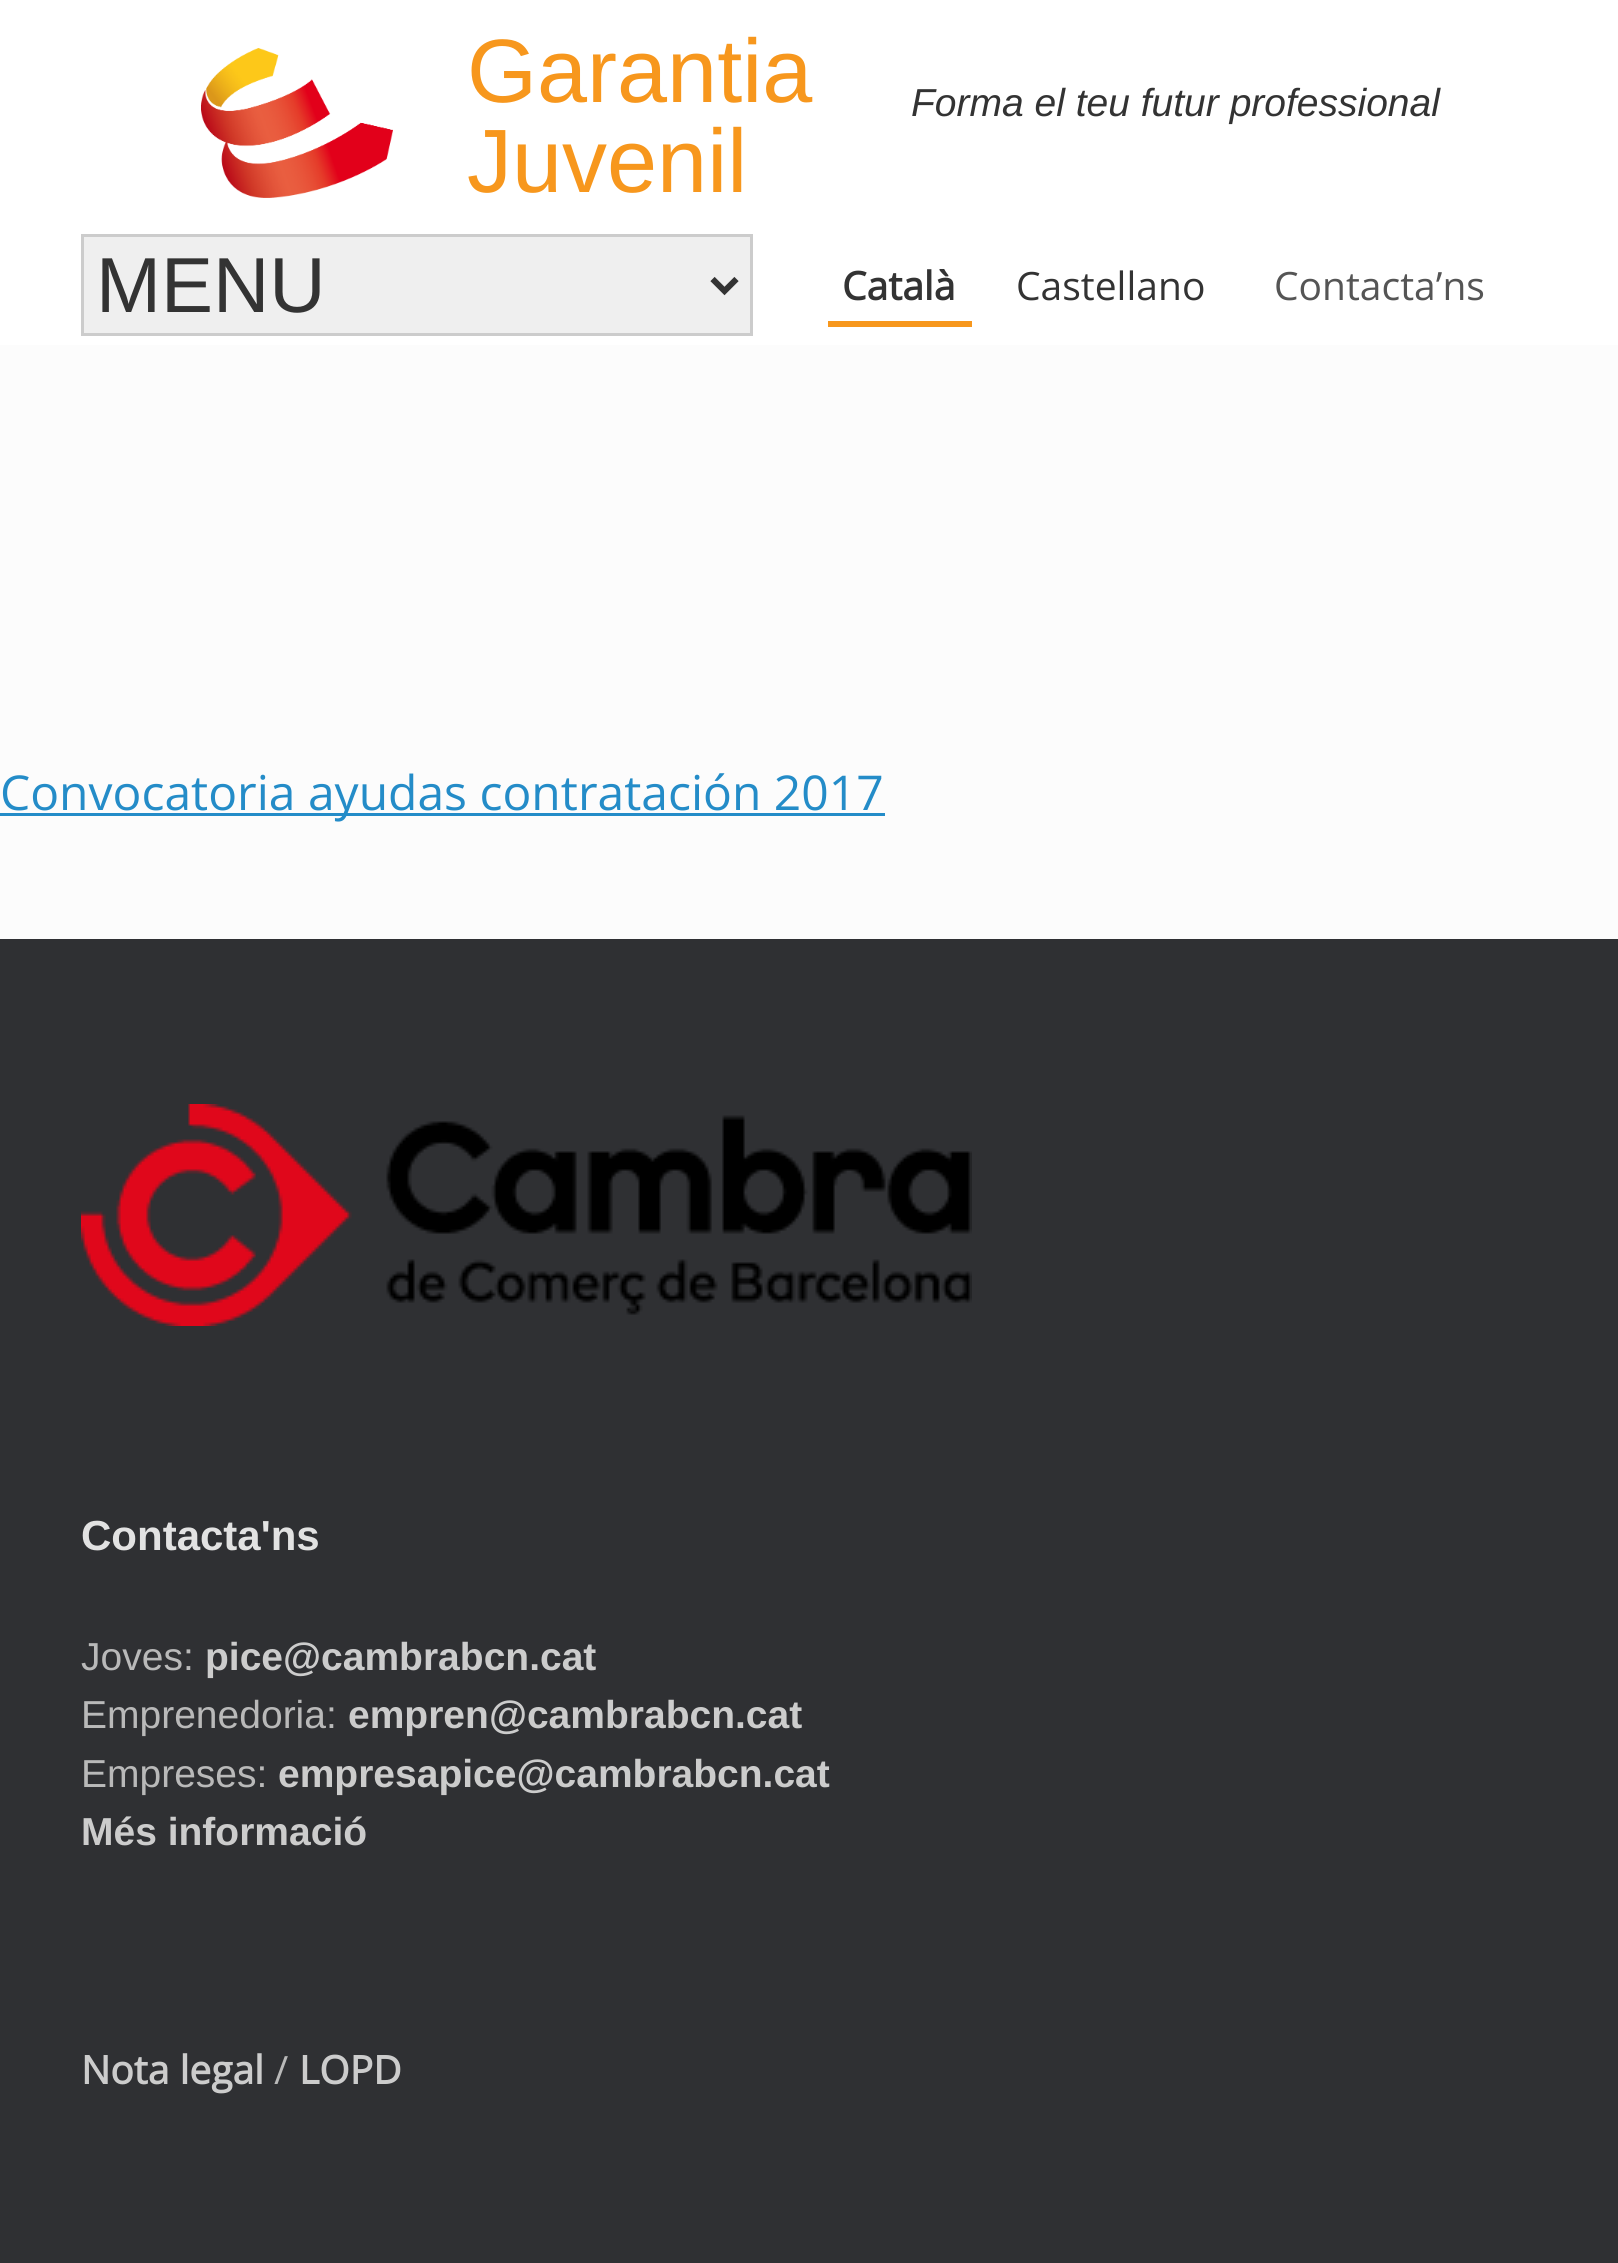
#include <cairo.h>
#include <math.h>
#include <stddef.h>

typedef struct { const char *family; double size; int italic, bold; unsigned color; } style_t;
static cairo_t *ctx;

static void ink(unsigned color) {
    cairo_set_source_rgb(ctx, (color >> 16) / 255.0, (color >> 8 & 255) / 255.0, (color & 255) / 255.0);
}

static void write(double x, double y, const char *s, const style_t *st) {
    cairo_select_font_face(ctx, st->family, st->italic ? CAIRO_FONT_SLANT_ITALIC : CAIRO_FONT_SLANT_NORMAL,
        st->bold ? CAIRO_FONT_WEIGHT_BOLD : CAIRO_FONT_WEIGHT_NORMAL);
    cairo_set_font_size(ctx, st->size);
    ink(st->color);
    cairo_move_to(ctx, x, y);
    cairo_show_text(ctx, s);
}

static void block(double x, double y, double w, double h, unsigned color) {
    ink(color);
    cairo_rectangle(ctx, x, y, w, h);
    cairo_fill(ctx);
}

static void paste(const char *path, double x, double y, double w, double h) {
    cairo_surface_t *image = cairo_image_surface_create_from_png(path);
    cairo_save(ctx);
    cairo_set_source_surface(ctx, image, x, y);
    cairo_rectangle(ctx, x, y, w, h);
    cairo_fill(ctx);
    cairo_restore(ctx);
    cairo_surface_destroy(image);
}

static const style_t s1 = {"Liberation Sans", 90, 0, 0, 0xf7971d};
static const style_t s2 = {"Liberation Sans", 39, 1, 0, 0x333333};
static const style_t s3 = {"Liberation Sans", 78, 0, 0, 0x333333};
static const style_t s4 = {"Open Sans", 39, 0, 1, 0x333333};
static const style_t s5 = {"Open Sans", 39, 0, 0, 0x333333};
static const style_t s6 = {"Open Sans", 39, 0, 0, 0x555555};
static const style_t s7 = {"Open Sans", 48, 0, 0, 0x248cc8};
static const style_t s8 = {"Liberation Sans", 42, 0, 1, 0xe2e2e2};
static const style_t s9 = {"Liberation Sans", 39, 0, 0, 0xb9b9b9};
static const style_t s10 = {"Liberation Sans", 39, 0, 1, 0xcccccc};
static const style_t s11 = {"Open Sans", 39, 0, 1, 0xcccccc};
static const style_t s12 = {"Open Sans", 39, 0, 0, 0xb9b9b9};

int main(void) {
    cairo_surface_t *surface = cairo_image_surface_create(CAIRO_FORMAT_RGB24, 1618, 2263);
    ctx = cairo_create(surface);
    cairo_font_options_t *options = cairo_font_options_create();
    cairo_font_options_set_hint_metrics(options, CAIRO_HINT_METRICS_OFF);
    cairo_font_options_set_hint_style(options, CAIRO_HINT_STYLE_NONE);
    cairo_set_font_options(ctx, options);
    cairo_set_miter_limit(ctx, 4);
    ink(0x2f3033);
    cairo_paint(ctx);
    block(0, 0, 1618, 345, 0xffffff);
    paste("pic1.png", 201, 48, 192, 150);
    write(467, 102, "Garantia", &s1);
    write(467, 192, "Juvenil", &s1);
    write(911, 116, "Forma el teu futur professional", &s2);
    ink(0xefefef);
    cairo_rectangle(ctx, 82.5, 235.5, 669, 99);
    cairo_fill_preserve(ctx);
    ink(0xcccccc);
    cairo_set_line_width(ctx, 3);
    cairo_stroke(ctx);
    cairo_new_path(ctx);
    cairo_move_to(ctx, 712.5, 279);
    cairo_line_to(ctx, 724.5, 291);
    cairo_line_to(ctx, 736.5, 279);
    ink(0x333333);
    cairo_set_line_width(ctx, 6);
    cairo_stroke(ctx);
    write(96, 312, "MENU", &s3);
    block(828, 321, 144, 6, 0xf7971d);
    write(842, 300, "Català", &s4);
    write(1016, 300, "Castellano", &s5);
    write(1274, 300, "Contacta’ns", &s6);
    block(0, 345, 1618, 594, 0xfcfcfc);
    block(0, 813, 885, 3, 0x248cc8);
    write(0, 810, "Convocatoria ayudas contratación 2017", &s7);
    paste("pic2.png", 81, 1104, 891, 222);
    write(81, 1550, "Contacta'ns", &s8);
    write(81, 1670, "Joves:", &s9);
    write(205, 1670, "pice@cambrabcn.cat", &s10);
    write(81, 1728, "Emprenedoria:", &s9);
    write(348, 1728, "empren@cambrabcn.cat", &s10);
    write(81, 1787, "Empreses:", &s9);
    write(278, 1787, "empresapice@cambrabcn.cat", &s10);
    write(81, 1845, "Més informació", &s10);
    write(81, 2084, "Nota legal", &s11);
    write(274, 2084, "/", &s12);
    write(299, 2084, "LOPD", &s11);
    cairo_surface_write_to_png(surface, "screenshot.png");
    cairo_font_options_destroy(options);
    cairo_destroy(ctx);
    cairo_surface_destroy(surface);
    return 0;
}
